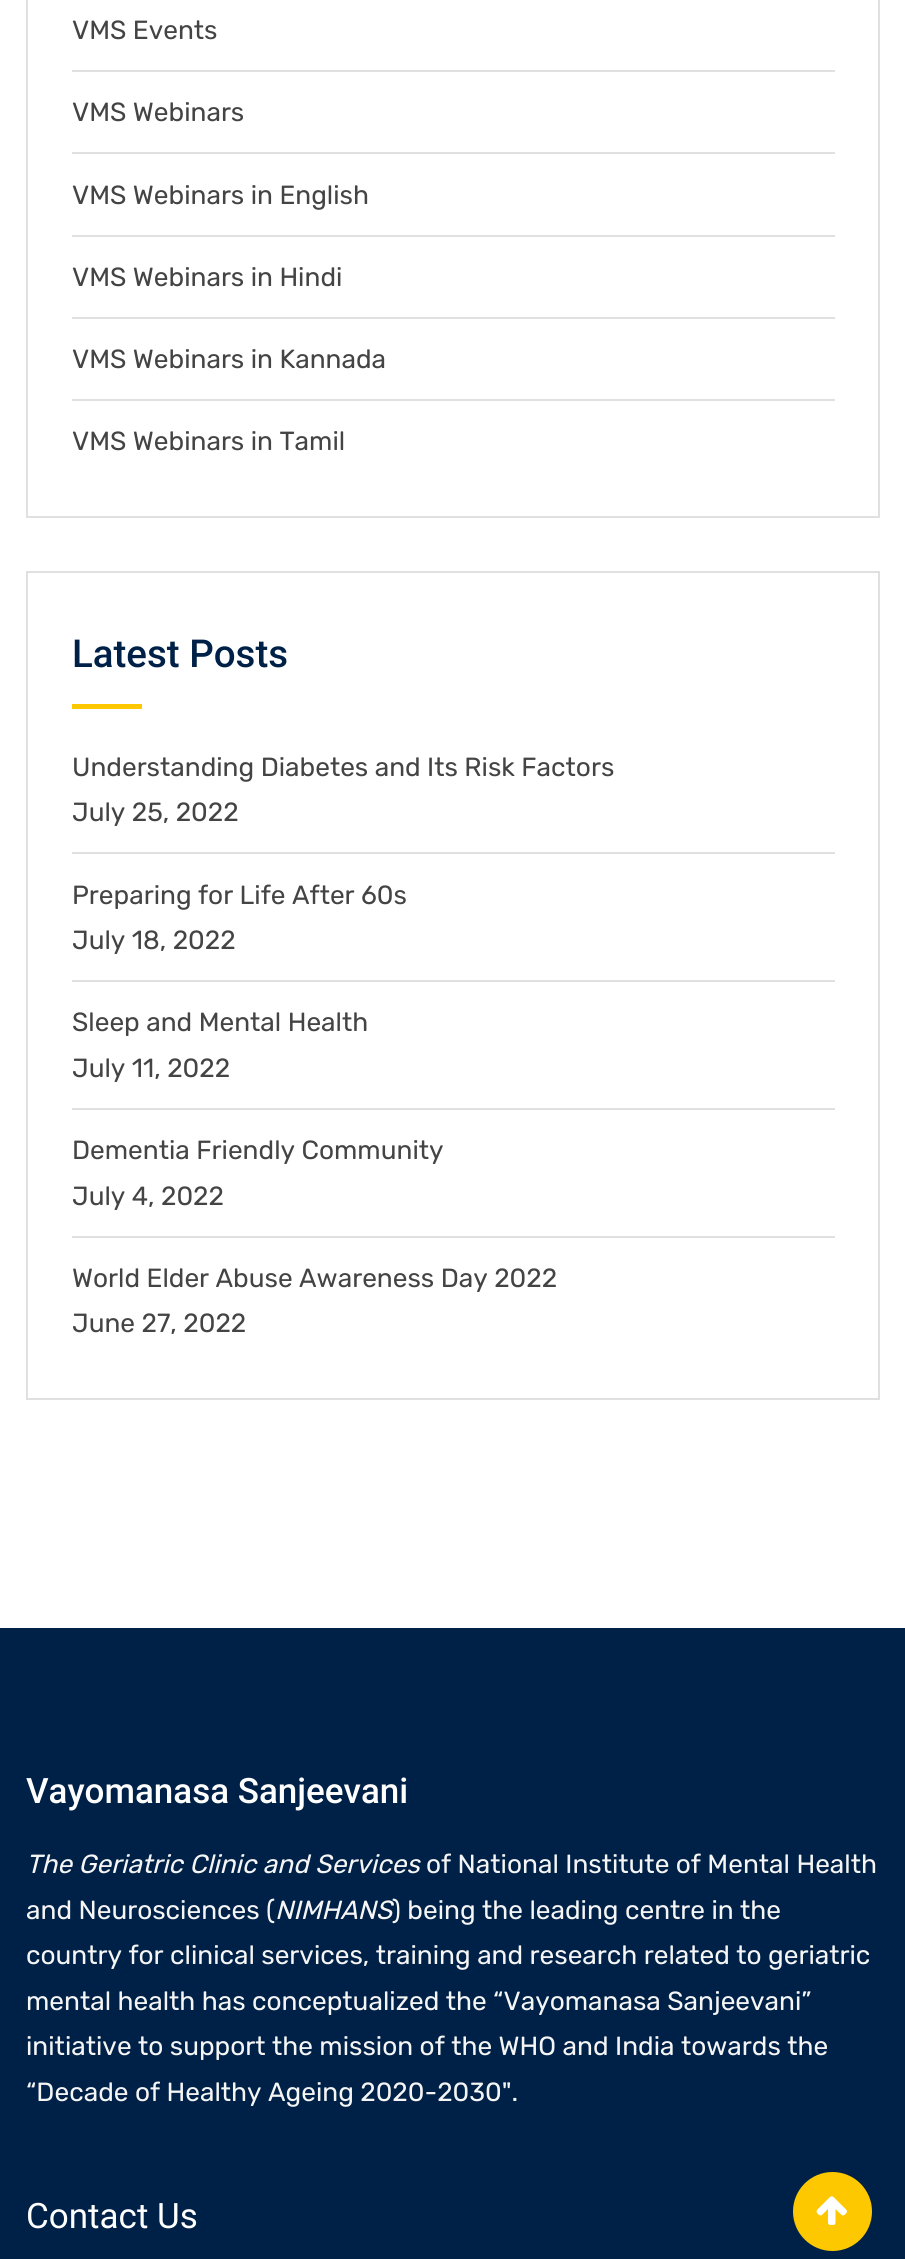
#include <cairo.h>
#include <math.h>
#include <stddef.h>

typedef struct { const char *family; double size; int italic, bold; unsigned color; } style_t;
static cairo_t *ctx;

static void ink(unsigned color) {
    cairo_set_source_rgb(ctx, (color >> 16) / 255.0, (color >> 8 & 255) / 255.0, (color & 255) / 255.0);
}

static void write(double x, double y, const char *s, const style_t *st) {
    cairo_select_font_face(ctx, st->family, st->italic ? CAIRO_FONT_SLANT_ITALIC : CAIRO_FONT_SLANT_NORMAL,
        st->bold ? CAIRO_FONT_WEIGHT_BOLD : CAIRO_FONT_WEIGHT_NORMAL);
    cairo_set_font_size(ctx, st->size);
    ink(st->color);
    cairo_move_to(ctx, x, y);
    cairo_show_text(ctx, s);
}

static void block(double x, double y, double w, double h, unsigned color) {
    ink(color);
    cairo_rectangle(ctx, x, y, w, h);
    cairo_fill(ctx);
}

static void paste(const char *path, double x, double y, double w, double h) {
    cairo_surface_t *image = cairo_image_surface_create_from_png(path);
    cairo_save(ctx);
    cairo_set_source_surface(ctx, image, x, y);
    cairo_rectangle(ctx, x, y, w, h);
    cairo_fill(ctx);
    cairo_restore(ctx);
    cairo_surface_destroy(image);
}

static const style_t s1 = {"Rubik", 26.25, 0, 0, 0x444444};
static const style_t s2 = {"Roboto Medium", 38.5, 0, 0, 0x002147};
static const style_t s3 = {"Roboto Medium", 35, 0, 0, 0xffffff};
static const style_t s4 = {"Rubik", 26.25, 1, 0, 0xf5f5f5};
static const style_t s5 = {"Rubik", 26.25, 0, 0, 0xf5f5f5};
static const style_t s6 = {"Roboto", 35, 0, 0, 0xffffff};

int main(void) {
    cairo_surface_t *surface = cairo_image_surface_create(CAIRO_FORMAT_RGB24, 905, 2259);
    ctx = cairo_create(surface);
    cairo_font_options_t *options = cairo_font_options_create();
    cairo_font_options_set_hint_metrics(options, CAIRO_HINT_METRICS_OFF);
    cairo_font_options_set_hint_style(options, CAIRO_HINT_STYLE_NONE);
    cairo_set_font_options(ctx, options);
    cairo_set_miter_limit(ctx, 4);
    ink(0xffffff);
    cairo_paint(ctx);
    cairo_rectangle(ctx, 27, -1, 852, 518);
    ink(0xe0e0e0);
    cairo_stroke(ctx);
    block(72, 70, 763, 2, 0xe0e0e0);
    write(72, 39, "VMS Events", &s1);
    block(72, 152, 763, 2, 0xe0e0e0);
    write(72, 121, "VMS Webinars", &s1);
    block(72, 235, 763, 2, 0xe0e0e0);
    write(72, 204, "VMS Webinars in English", &s1);
    block(72, 317, 763, 2, 0xe0e0e0);
    write(72, 286, "VMS Webinars in Hindi", &s1);
    block(72, 399, 763, 2, 0xe0e0e0);
    write(72, 368, "VMS Webinars in Kannada", &s1);
    write(72, 450, "VMS Webinars in Tamil", &s1);
    cairo_rectangle(ctx, 27, 572, 852, 827);
    ink(0xe0e0e0);
    cairo_stroke(ctx);
    write(72, 667, "Latest Posts", &s2);
    block(72, 704, 70, 5, 0xfdc800);
    block(72, 852, 763, 2, 0xe0e0e0);
    write(72, 776, "Understanding Diabetes and Its Risk Factors", &s1);
    write(72, 821, "July 25, 2022", &s1);
    block(72, 980, 763, 2, 0xe0e0e0);
    write(72, 904, "Preparing for Life After 60s", &s1);
    write(72, 949, "July 18, 2022", &s1);
    block(72, 1108, 763, 2, 0xe0e0e0);
    write(72, 1031, "Sleep and Mental Health", &s1);
    write(72, 1077, "July 11, 2022", &s1);
    block(72, 1236, 763, 2, 0xe0e0e0);
    write(72, 1159, "Dementia Friendly Community", &s1);
    write(72, 1205, "July 4, 2022", &s1);
    write(72, 1287, "World Elder Abuse Awareness Day 2022", &s1);
    write(72, 1332, "June 27, 2022", &s1);
    block(0, 1628, 905, 631, 0x002147);
    write(26, 1803, "Vayomanasa Sanjeevani", &s3);
    write(26, 1873, "The Geriatric Clinic and Services", &s4);
    write(426, 1873, "of National Institute of Mental Health", &s5);
    write(26, 1919, "and Neurosciences (", &s5);
    write(275, 1919, "NIMHANS", &s4);
    write(392, 1919, ") being the leading centre in the", &s5);
    write(26, 1964, "country for clinical services, training and research related to geriatric", &s5);
    write(26, 2010, "mental health has conceptualized the “Vayomanasa Sanjeevani”", &s5);
    write(26, 2055, "initiative to support the mission of the WHO and India towards the", &s5);
    write(26, 2101, "“Decade of Healthy Ageing 2020-2030\".", &s5);
    write(26, 2228, "Contact Us", &s6);
    ink(0xfdc800);
    cairo_new_path(ctx);
    cairo_arc(ctx, 832.5, 2211.5, 39.5, 0, 2 * M_PI);
    cairo_fill(ctx);
    paste("pic1.png", 816, 2196, 31, 29);
    cairo_surface_write_to_png(surface, "screenshot.png");
    cairo_font_options_destroy(options);
    cairo_destroy(ctx);
    cairo_surface_destroy(surface);
    return 0;
}
